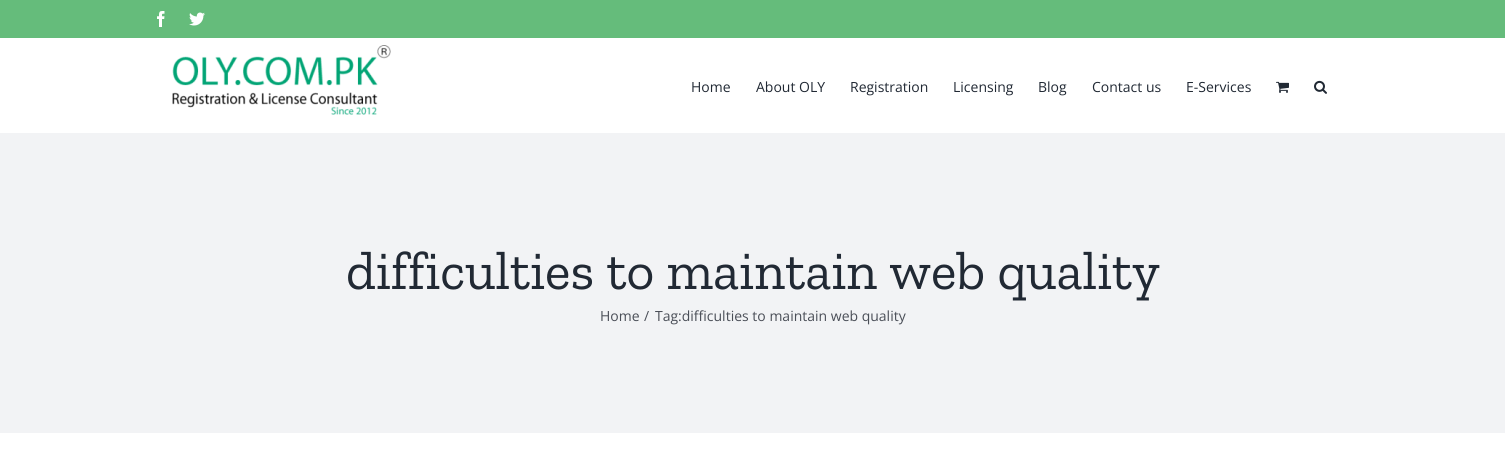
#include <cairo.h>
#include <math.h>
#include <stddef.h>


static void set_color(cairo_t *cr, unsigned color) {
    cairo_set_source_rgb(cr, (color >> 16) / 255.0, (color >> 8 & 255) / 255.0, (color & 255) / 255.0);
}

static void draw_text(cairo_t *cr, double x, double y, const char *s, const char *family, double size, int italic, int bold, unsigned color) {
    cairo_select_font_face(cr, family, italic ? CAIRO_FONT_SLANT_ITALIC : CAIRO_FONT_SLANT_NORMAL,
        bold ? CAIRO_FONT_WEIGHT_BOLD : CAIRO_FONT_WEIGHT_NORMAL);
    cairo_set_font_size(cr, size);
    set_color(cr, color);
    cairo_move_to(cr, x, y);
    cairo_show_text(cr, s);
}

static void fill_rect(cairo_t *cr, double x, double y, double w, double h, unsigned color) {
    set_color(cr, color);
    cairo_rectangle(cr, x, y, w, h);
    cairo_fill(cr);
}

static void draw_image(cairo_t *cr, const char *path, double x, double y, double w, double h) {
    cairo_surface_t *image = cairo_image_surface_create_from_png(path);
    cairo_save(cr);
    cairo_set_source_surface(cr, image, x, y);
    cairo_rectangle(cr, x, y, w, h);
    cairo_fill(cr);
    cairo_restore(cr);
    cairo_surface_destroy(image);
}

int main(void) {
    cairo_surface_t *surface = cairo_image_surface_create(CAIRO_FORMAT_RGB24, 1505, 463);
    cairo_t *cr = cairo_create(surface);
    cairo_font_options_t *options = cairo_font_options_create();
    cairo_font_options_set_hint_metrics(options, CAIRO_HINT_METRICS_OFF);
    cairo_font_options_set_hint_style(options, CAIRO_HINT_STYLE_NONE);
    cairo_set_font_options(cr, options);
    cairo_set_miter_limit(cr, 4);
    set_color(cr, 0xFFFFFF);
    cairo_paint(cr);
    fill_rect(cr, 0, 0, 1505, 38, 0x65BC7B);
    draw_image(cr, "assets/img1.png", 157, 11, 8, 16);
    draw_image(cr, "assets/img2.png", 189, 12, 16, 14);
    draw_image(cr, "assets/img3.png", 172, 45, 219, 70);
    draw_text(cr, 691, 92, "Home", "Open Sans", 14, 0, 0, 0x212934);
    draw_text(cr, 756, 92, "About OLY", "Open Sans", 14, 0, 0, 0x212934);
    draw_text(cr, 850, 92, "Registration", "Open Sans", 14, 0, 0, 0x212934);
    draw_text(cr, 953, 92, "Licensing", "Open Sans", 14, 0, 0, 0x212934);
    draw_text(cr, 1038, 92, "Blog", "Open Sans", 14, 0, 0, 0x212934);
    draw_text(cr, 1092, 92, "Contact us", "Open Sans", 14, 0, 0, 0x212934);
    draw_text(cr, 1186, 92, "E-Services", "Open Sans", 14, 0, 0, 0x212934);
    draw_image(cr, "assets/img4.png", 1276, 81, 13, 12);
    draw_image(cr, "assets/img5.png", 1314, 80, 13, 14);
    fill_rect(cr, 0, 133, 1505, 300, 0xF2F3F5);
    draw_text(cr, 346, 289, "difficulties to maintain web quality", "Zilla Slab", 54, 0, 0, 0x212934);
    draw_text(cr, 600, 321, "Home", "Open Sans", 14, 0, 0, 0x4A4E57);
    draw_text(cr, 644, 321, "/", "Open Sans", 14, 0, 0, 0x4A4E57);
    draw_text(cr, 655, 321, "Tag:difficulties to maintain web quality", "Open Sans", 14, 0, 0, 0x4A4E57);
    cairo_surface_write_to_png(surface, "output.png");
    cairo_font_options_destroy(options);
    cairo_destroy(cr);
    cairo_surface_destroy(surface);
    return 0;
}
